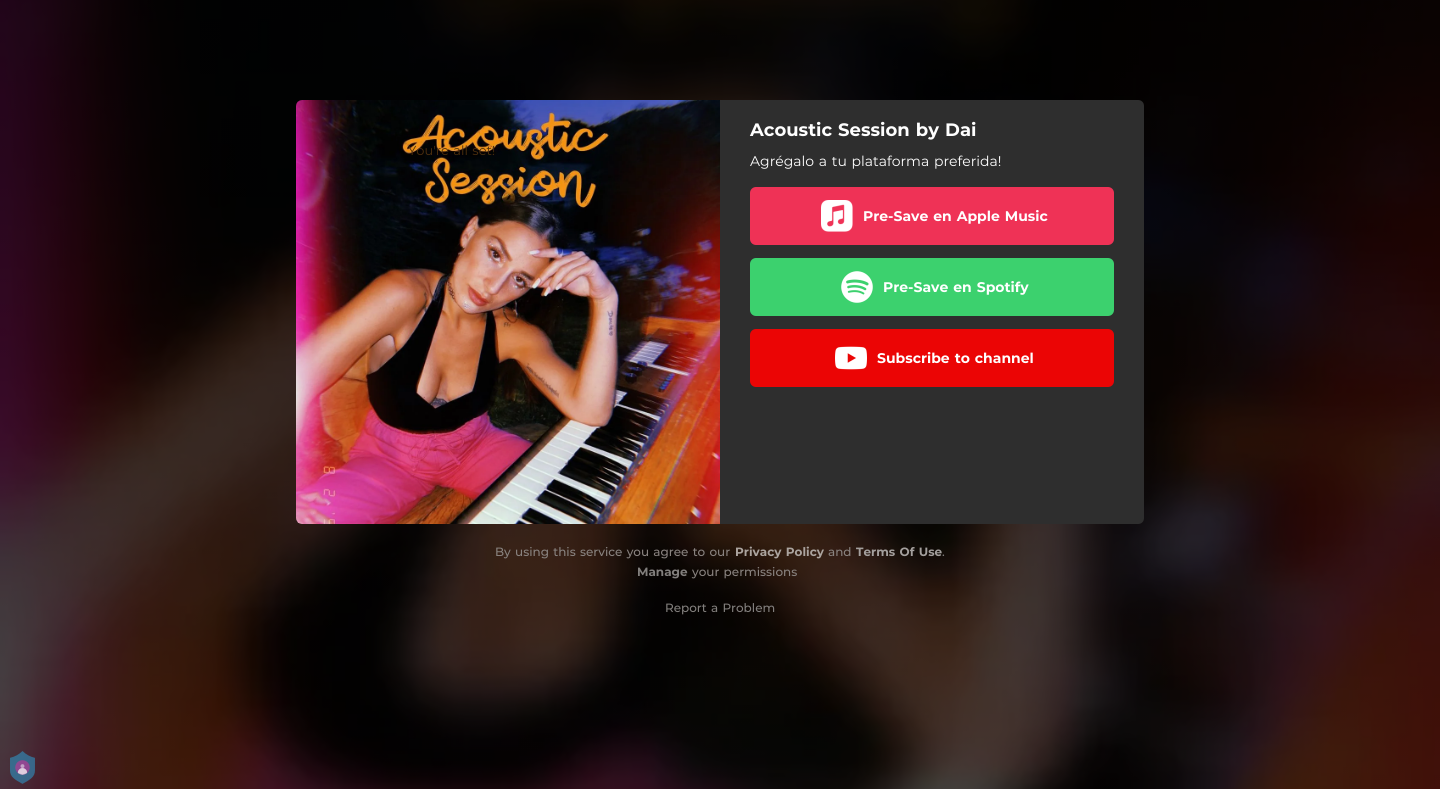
#include <cairo.h>
#include <math.h>
#include <stddef.h>


static void set_color(cairo_t *cr, unsigned color) {
    cairo_set_source_rgb(cr, (color >> 16) / 255.0, (color >> 8 & 255) / 255.0, (color & 255) / 255.0);
}

static void draw_text(cairo_t *cr, double x, double y, const char *s, const char *family, double size, int italic, int bold, unsigned color) {
    cairo_select_font_face(cr, family, italic ? CAIRO_FONT_SLANT_ITALIC : CAIRO_FONT_SLANT_NORMAL,
        bold ? CAIRO_FONT_WEIGHT_BOLD : CAIRO_FONT_WEIGHT_NORMAL);
    cairo_set_font_size(cr, size);
    set_color(cr, color);
    cairo_move_to(cr, x, y);
    cairo_show_text(cr, s);
}

static void draw_spaced(cairo_t *cr, double x, double y, const char *s, double letter, double word) {
    cairo_move_to(cr, x, y);
    while (*s) {
        char ch[5] = {0};
        int n = 0;
        do ch[n++] = *s++; while ((*s & 0xC0) == 0x80);
        cairo_show_text(cr, ch);
        cairo_rel_move_to(cr, letter + word * (*ch == ' '), 0);
    }
}

static void rounded_rect(cairo_t *cr, double x, double y, double w, double h, double r) {
    cairo_new_sub_path(cr);
    cairo_arc(cr, x + w - r, y + h - r, r, 0, M_PI / 2);
    cairo_arc(cr, x + r, y + h - r, r, M_PI / 2, M_PI);
    cairo_arc(cr, x + r, y + r, r, M_PI, 1.5 * M_PI);
    cairo_arc(cr, x + w - r, y + r, r, 1.5 * M_PI, 2 * M_PI);
    cairo_close_path(cr);
}

static void draw_image(cairo_t *cr, const char *path, double x, double y, double w, double h) {
    cairo_surface_t *image = cairo_image_surface_create_from_png(path);
    cairo_save(cr);
    cairo_set_source_surface(cr, image, x, y);
    cairo_rectangle(cr, x, y, w, h);
    cairo_fill(cr);
    cairo_restore(cr);
    cairo_surface_destroy(image);
}

int main(void) {
    cairo_surface_t *surface = cairo_image_surface_create(CAIRO_FORMAT_RGB24, 1440, 789);
    cairo_t *cr = cairo_create(surface);
    cairo_font_options_t *options = cairo_font_options_create();
    cairo_font_options_set_hint_metrics(options, CAIRO_HINT_METRICS_OFF);
    cairo_font_options_set_hint_style(options, CAIRO_HINT_STYLE_NONE);
    cairo_set_font_options(cr, options);
    cairo_set_miter_limit(cr, 4);
    set_color(cr, 0xFFFFFF);
    cairo_paint(cr);
    draw_image(cr, "assets/img1.png", 0, 0, 1440, 789);
    draw_image(cr, "assets/img2.png", 296, 100, 424, 424);
    cairo_select_font_face(cr, "Montserrat", CAIRO_FONT_SLANT_NORMAL, CAIRO_FONT_WEIGHT_NORMAL);
    cairo_set_font_size(cr, 13);
    set_color(cr, 0x4D2F0D);
    draw_spaced(cr, 408, 155, "You're all set!", 0, 1);
    set_color(cr, 0x2E2E2E);
    cairo_new_path(cr);
    cairo_move_to(cr, 720, 100);
    cairo_line_to(cr, 1138, 100);
    cairo_curve_to(cr, 1141.5, 100, 1144, 102.5, 1144, 106);
    cairo_line_to(cr, 1144, 518);
    cairo_curve_to(cr, 1144, 521.5, 1141.5, 524, 1138, 524);
    cairo_line_to(cr, 720, 524);
    cairo_close_path(cr);
    cairo_fill(cr);
    cairo_select_font_face(cr, "Montserrat", CAIRO_FONT_SLANT_NORMAL, CAIRO_FONT_WEIGHT_BOLD);
    cairo_set_font_size(cr, 18);
    set_color(cr, 0xFFFFFF);
    draw_spaced(cr, 750, 136, "Acoustic Session by Dai", 0, 1);
    cairo_select_font_face(cr, "Montserrat", CAIRO_FONT_SLANT_NORMAL, CAIRO_FONT_WEIGHT_NORMAL);
    cairo_set_font_size(cr, 14);
    draw_spaced(cr, 750, 166, "Agrégalo a tu plataforma preferida!", 0, 1);
    set_color(cr, 0xEF3256);
    rounded_rect(cr, 750, 187, 364, 58, 6);
    cairo_fill(cr);
    draw_image(cr, "assets/img3.png", 821, 200, 32, 32);
    cairo_select_font_face(cr, "Montserrat", CAIRO_FONT_SLANT_NORMAL, CAIRO_FONT_WEIGHT_BOLD);
    set_color(cr, 0xFFFFFF);
    draw_spaced(cr, 863, 221, "Pre-Save en Apple Music", 0, 1);
    set_color(cr, 0x3CD16E);
    rounded_rect(cr, 750, 258, 364, 58, 6);
    cairo_fill(cr);
    draw_image(cr, "assets/img4.png", 841, 271, 32, 32);
    set_color(cr, 0xFFFFFF);
    draw_spaced(cr, 883, 292, "Pre-Save en Spotify", 0, 1);
    set_color(cr, 0xEB0505);
    rounded_rect(cr, 750, 329, 364, 58, 6);
    cairo_fill(cr);
    draw_image(cr, "assets/img5.png", 835, 346, 32, 24);
    set_color(cr, 0xFFFFFF);
    draw_spaced(cr, 877, 363, "Subscribe to channel", 0, 1);
    cairo_select_font_face(cr, "Montserrat Medium", CAIRO_FONT_SLANT_NORMAL, CAIRO_FONT_WEIGHT_NORMAL);
    cairo_set_font_size(cr, 12);
    set_color(cr, 0x898380);
    draw_spaced(cr, 495, 556, "By using this service you agree to our", 0, 1);
    cairo_select_font_face(cr, "Montserrat", CAIRO_FONT_SLANT_NORMAL, CAIRO_FONT_WEIGHT_BOLD);
    set_color(cr, 0xABA49F);
    draw_spaced(cr, 735, 556, "Privacy Policy", 0, 1);
    draw_text(cr, 828, 556, "and", "Montserrat Medium", 12, 0, 0, 0x898380);
    cairo_select_font_face(cr, "Montserrat", CAIRO_FONT_SLANT_NORMAL, CAIRO_FONT_WEIGHT_BOLD);
    set_color(cr, 0xA4A09E);
    draw_spaced(cr, 856, 556, "Terms Of Use", 0, 1);
    draw_text(cr, 942, 556, ".", "Montserrat Medium", 12, 0, 0, 0x827F7D);
    draw_text(cr, 637, 576, "Manage", "Montserrat", 12, 0, 1, 0x827F7D);
    cairo_select_font_face(cr, "Montserrat Medium", CAIRO_FONT_SLANT_NORMAL, CAIRO_FONT_WEIGHT_NORMAL);
    set_color(cr, 0x898380);
    draw_spaced(cr, 692, 576, "your permissions", 0, 1);
    set_color(cr, 0x827F7D);
    draw_spaced(cr, 665, 612, "Report a Problem", 0, 1);
    draw_image(cr, "assets/img6.png", 10, 751, 25, 33);
    cairo_surface_write_to_png(surface, "output.png");
    cairo_font_options_destroy(options);
    cairo_destroy(cr);
    cairo_surface_destroy(surface);
    return 0;
}
